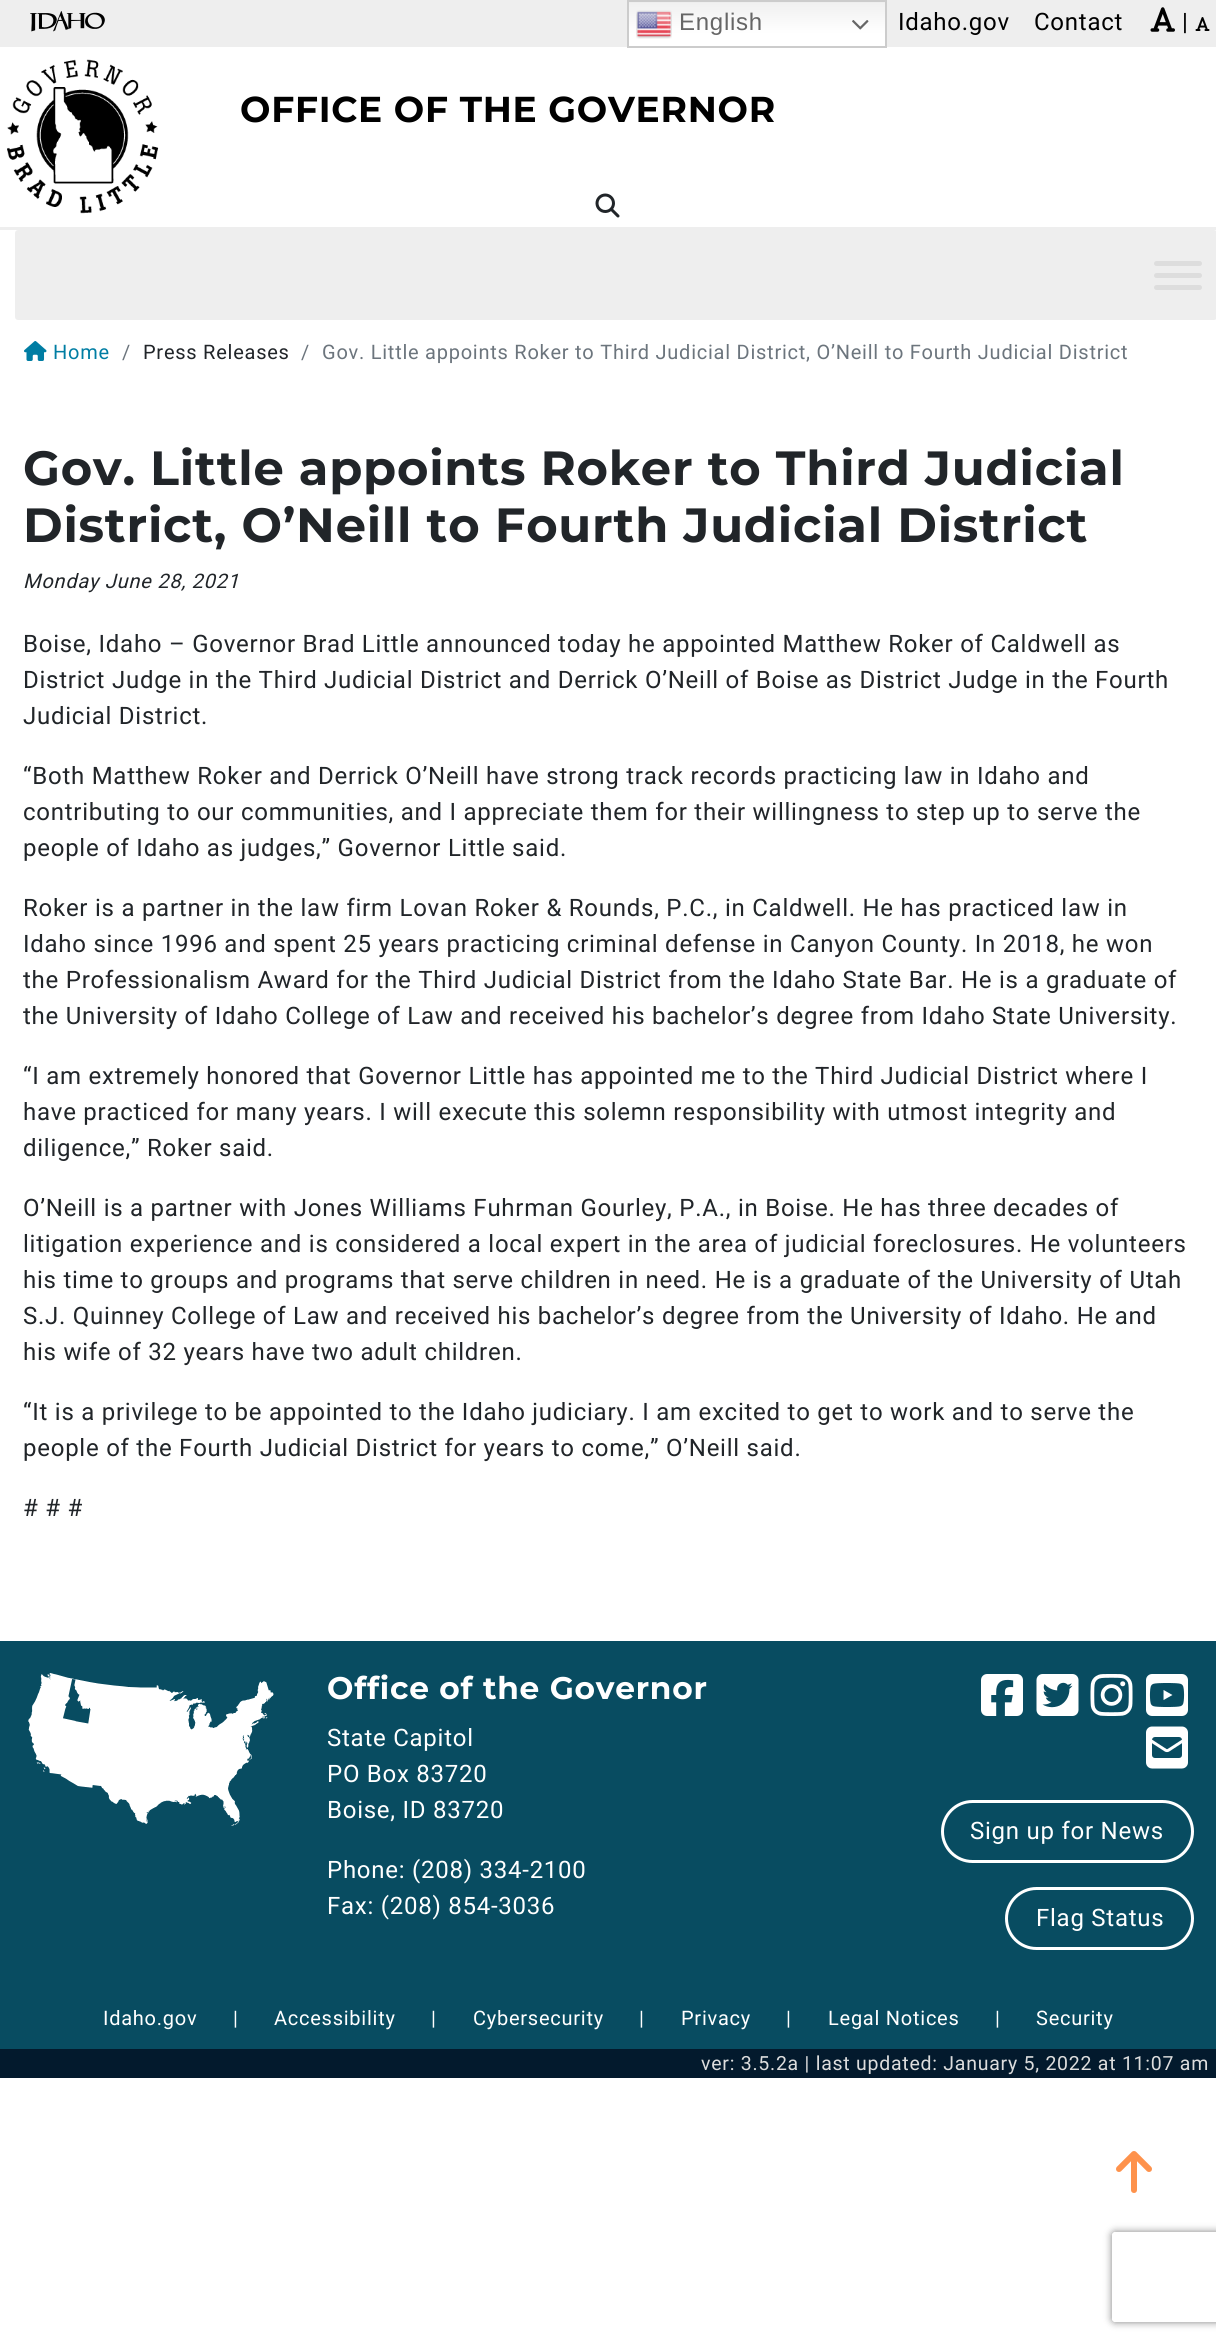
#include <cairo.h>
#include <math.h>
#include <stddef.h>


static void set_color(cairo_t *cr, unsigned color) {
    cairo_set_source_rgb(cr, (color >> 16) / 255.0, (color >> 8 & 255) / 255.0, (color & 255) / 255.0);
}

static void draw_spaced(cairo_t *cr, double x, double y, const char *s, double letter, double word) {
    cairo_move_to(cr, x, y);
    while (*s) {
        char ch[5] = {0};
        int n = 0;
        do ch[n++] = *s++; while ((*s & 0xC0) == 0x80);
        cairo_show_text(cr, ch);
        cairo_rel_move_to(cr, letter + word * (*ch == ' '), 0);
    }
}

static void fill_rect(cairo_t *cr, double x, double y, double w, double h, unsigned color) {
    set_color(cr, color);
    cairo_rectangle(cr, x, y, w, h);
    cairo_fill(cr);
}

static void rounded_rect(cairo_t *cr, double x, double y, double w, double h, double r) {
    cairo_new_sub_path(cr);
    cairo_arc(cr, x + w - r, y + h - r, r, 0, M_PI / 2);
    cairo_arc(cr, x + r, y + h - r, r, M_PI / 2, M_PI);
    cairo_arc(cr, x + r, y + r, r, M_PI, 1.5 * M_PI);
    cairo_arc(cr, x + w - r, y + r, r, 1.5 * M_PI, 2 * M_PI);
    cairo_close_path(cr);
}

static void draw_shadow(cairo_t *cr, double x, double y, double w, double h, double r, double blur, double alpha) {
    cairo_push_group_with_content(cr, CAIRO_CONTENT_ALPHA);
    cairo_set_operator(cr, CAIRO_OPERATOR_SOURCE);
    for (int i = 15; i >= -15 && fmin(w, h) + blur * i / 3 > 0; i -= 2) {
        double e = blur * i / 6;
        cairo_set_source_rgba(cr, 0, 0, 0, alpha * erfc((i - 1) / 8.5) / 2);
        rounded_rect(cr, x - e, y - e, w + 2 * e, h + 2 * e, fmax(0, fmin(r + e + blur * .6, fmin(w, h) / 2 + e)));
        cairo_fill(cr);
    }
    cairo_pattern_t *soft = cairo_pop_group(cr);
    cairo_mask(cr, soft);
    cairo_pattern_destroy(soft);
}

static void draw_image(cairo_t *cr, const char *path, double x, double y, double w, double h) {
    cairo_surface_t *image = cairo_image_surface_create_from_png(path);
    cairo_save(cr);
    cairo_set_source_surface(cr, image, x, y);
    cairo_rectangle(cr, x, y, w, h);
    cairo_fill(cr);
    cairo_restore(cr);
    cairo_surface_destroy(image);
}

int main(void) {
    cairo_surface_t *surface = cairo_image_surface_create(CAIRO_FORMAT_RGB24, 1216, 2343);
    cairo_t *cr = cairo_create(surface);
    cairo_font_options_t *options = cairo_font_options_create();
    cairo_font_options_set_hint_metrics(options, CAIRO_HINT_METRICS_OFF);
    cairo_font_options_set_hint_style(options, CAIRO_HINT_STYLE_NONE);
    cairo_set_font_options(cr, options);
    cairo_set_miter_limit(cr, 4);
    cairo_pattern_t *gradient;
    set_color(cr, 0xFFFFFF);
    cairo_paint(cr);
    fill_rect(cr, 0, 0, 1216, 47, 0xEEEEEE);
    draw_image(cr, "assets/img1.png", 30, 11, 75, 21);
    gradient = cairo_pattern_create_linear(757, 0, 757, 48);
    cairo_pattern_add_color_stop_rgba(gradient, 0, 0.937, 0.937, 0.937, 1);
    cairo_pattern_add_color_stop_rgba(gradient, 0.7, 1, 1, 1, 1);
    cairo_set_source(cr, gradient);
    cairo_pattern_destroy(gradient);
    cairo_rectangle(cr, 629, 3, 256, 43);
    cairo_fill(cr);
    cairo_rectangle(cr, 628, 1, 258, 46);
    set_color(cr, 0xCCCCCC);
    cairo_stroke(cr);
    draw_image(cr, "assets/img2.png", 636, 10, 36, 29);
    cairo_select_font_face(cr, "Liberation Sans", CAIRO_FONT_SLANT_NORMAL, CAIRO_FONT_WEIGHT_NORMAL);
    cairo_set_font_size(cr, 24);
    set_color(cr, 0x666666);
    draw_spaced(cr, 679, 30, "English", 0.75, 0);
    draw_image(cr, "assets/img3.png", 852, 20, 17, 10);
    cairo_select_font_face(cr, "Roboto", CAIRO_FONT_SLANT_NORMAL, CAIRO_FONT_WEIGHT_NORMAL);
    set_color(cr, 0x000000);
    draw_spaced(cr, 898, 30, "Idaho.gov", 0.75, 0);
    draw_spaced(cr, 1034, 30, "Contact", 0.75, 0);
    draw_image(cr, "assets/img4.png", 1150, 7, 25, 25);
    draw_spaced(cr, 1182, 30, "|", 0.75, 0);
    draw_image(cr, "assets/img5.png", 1195, 17, 15, 14);
    fill_rect(cr, 0, 227, 1216, 3, 0xEEEEEE);
    draw_image(cr, "assets/img6.png", 7, 59, 152, 155);
    cairo_select_font_face(cr, "Montserrat", CAIRO_FONT_SLANT_NORMAL, CAIRO_FONT_WEIGHT_BOLD);
    cairo_set_font_size(cr, 36);
    set_color(cr, 0x000000);
    draw_spaced(cr, 240, 122, "OFFICE OF THE GOVERNOR", 0.75, 0);
    draw_image(cr, "assets/img7.png", 595, 193, 25, 25);
    set_color(cr, 0xEEEEEE);
    rounded_rect(cr, 15, 230, 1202, 90, 3);
    cairo_fill(cr);
    set_color(cr, 0xDDDDDD);
    rounded_rect(cr, 1154, 261, 48, 5, 2.5);
    cairo_fill(cr);
    rounded_rect(cr, 1154, 273, 48, 5, 2.5);
    cairo_fill(cr);
    rounded_rect(cr, 1154, 285, 48, 5, 2.5);
    cairo_fill(cr);
    draw_image(cr, "assets/img8.png", 24, 341, 23, 20);
    cairo_select_font_face(cr, "Roboto", CAIRO_FONT_SLANT_NORMAL, CAIRO_FONT_WEIGHT_NORMAL);
    cairo_set_font_size(cr, 20);
    set_color(cr, 0x007DA3);
    draw_spaced(cr, 53, 359, "Home", 0.75, 0);
    set_color(cr, 0x6C757D);
    draw_spaced(cr, 122, 359, "/", 0.75, 0);
    set_color(cr, 0x212529);
    draw_spaced(cr, 143, 359, "Press Releases", 0.75, 0);
    set_color(cr, 0x6C757D);
    draw_spaced(cr, 301, 359, "/", 0.75, 0);
    draw_spaced(cr, 322, 359, "Gov. Little appoints Roker to Third Judicial District, O’Neill to Fourth Judicial District", 0.75, 0);
    cairo_select_font_face(cr, "Montserrat", CAIRO_FONT_SLANT_NORMAL, CAIRO_FONT_WEIGHT_BOLD);
    cairo_set_font_size(cr, 48);
    set_color(cr, 0x212529);
    draw_spaced(cr, 23, 485, "Gov. Little appoints Roker to Third Judicial", 0.75, 0);
    draw_spaced(cr, 23, 542, "District, O’Neill to Fourth Judicial District", 0.75, 0);
    cairo_select_font_face(cr, "Roboto", CAIRO_FONT_SLANT_ITALIC, CAIRO_FONT_WEIGHT_NORMAL);
    cairo_set_font_size(cr, 20);
    draw_spaced(cr, 23, 588, "Monday June 28, 2021", 0.75, 0);
    cairo_select_font_face(cr, "Roboto", CAIRO_FONT_SLANT_NORMAL, CAIRO_FONT_WEIGHT_NORMAL);
    cairo_set_font_size(cr, 24);
    draw_spaced(cr, 23, 652, "Boise, Idaho – Governor Brad Little announced today he appointed Matthew Roker of Caldwell as", 0.75, 0);
    draw_spaced(cr, 23, 688, "District Judge in the Third Judicial District and Derrick O’Neill of Boise as District Judge in the Fourth", 0.75, 0);
    draw_spaced(cr, 23, 724, "Judicial District.", 0.75, 0);
    draw_spaced(cr, 23, 784, "“Both Matthew Roker and Derrick O’Neill have strong track records practicing law in Idaho and", 0.75, 0);
    draw_spaced(cr, 23, 820, "contributing to our communities, and I appreciate them for their willingness to step up to serve the", 0.75, 0);
    draw_spaced(cr, 23, 856, "people of Idaho as judges,” Governor Little said.", 0.75, 0);
    draw_spaced(cr, 23, 916, "Roker is a partner in the law firm Lovan Roker & Rounds, P.C., in Caldwell. He has practiced law in", 0.75, 0);
    draw_spaced(cr, 23, 952, "Idaho since 1996 and spent 25 years practicing criminal defense in Canyon County. In 2018, he won", 0.75, 0);
    draw_spaced(cr, 23, 988, "the Professionalism Award for the Third Judicial District from the Idaho State Bar. He is a graduate of", 0.75, 0);
    draw_spaced(cr, 23, 1024, "the University of Idaho College of Law and received his bachelor’s degree from Idaho State University.", 0.75, 0);
    draw_spaced(cr, 23, 1084, "“I am extremely honored that Governor Little has appointed me to the Third Judicial District where I", 0.75, 0);
    draw_spaced(cr, 23, 1120, "have practiced for many years. I will execute this solemn responsibility with utmost integrity and", 0.75, 0);
    draw_spaced(cr, 23, 1156, "diligence,” Roker said.", 0.75, 0);
    draw_spaced(cr, 23, 1216, "O’Neill is a partner with Jones Williams Fuhrman Gourley, P.A., in Boise. He has three decades of", 0.75, 0);
    draw_spaced(cr, 23, 1252, "litigation experience and is considered a local expert in the area of judicial foreclosures. He volunteers", 0.75, 0);
    draw_spaced(cr, 23, 1288, "his time to groups and programs that serve children in need. He is a graduate of the University of Utah", 0.75, 0);
    draw_spaced(cr, 23, 1324, "S.J. Quinney College of Law and received his bachelor’s degree from the University of Idaho. He and", 0.75, 0);
    draw_spaced(cr, 23, 1360, "his wife of 32 years have two adult children.", 0.75, 0);
    draw_spaced(cr, 23, 1420, "“It is a privilege to be appointed to the Idaho judiciary. I am excited to get to work and to serve the", 0.75, 0);
    draw_spaced(cr, 23, 1456, "people of the Fourth Judicial District for years to come,” O’Neill said.", 0.75, 0);
    draw_spaced(cr, 23, 1516, "# # #", 0.75, 0);
    fill_rect(cr, 0, 1641, 1216, 408, 0x084C61);
    draw_image(cr, "assets/img9.png", 28, 1673, 246, 153);
    cairo_select_font_face(cr, "Montserrat", CAIRO_FONT_SLANT_NORMAL, CAIRO_FONT_WEIGHT_BOLD);
    cairo_set_font_size(cr, 31.25);
    set_color(cr, 0xFFFFFF);
    draw_spaced(cr, 327, 1699, "Office of the Governor", 0.75, 0);
    cairo_select_font_face(cr, "Roboto", CAIRO_FONT_SLANT_NORMAL, CAIRO_FONT_WEIGHT_NORMAL);
    cairo_set_font_size(cr, 24);
    draw_spaced(cr, 327, 1746, "State Capitol", 0.75, 0);
    draw_spaced(cr, 327, 1782, "PO Box 83720", 0.75, 0);
    draw_spaced(cr, 327, 1818, "Boise, ID 83720", 0.75, 0);
    draw_spaced(cr, 327, 1878, "Phone: (208) 334-2100", 0.75, 0);
    draw_spaced(cr, 327, 1914, "Fax: (208) 854-3036", 0.75, 0);
    draw_image(cr, "assets/img10.png", 981, 1674, 42, 42);
    draw_image(cr, "assets/img11.png", 1036, 1674, 43, 42);
    draw_image(cr, "assets/img12.png", 1090, 1674, 43, 42);
    draw_image(cr, "assets/img13.png", 1146, 1674, 42, 42);
    draw_image(cr, "assets/img14.png", 1146, 1726, 42, 43);
    rounded_rect(cr, 942.5, 1801.5, 250, 60, 30);
    cairo_set_line_width(cr, 3);
    cairo_stroke(cr);
    draw_spaced(cr, 970, 1839, "Sign up for News", 0.75, 0);
    rounded_rect(cr, 1006.5, 1888.5, 186, 60, 30);
    cairo_stroke(cr);
    draw_spaced(cr, 1036, 1926, "Flag Status", 0.75, 0);
    cairo_set_font_size(cr, 20);
    draw_spaced(cr, 103, 2025, "Idaho.gov", 0.75, 0);
    draw_spaced(cr, 233, 2025, "|", 0.75, 0);
    draw_spaced(cr, 274, 2025, "Accessibility", 0.75, 0);
    draw_spaced(cr, 431, 2025, "|", 0.75, 0);
    draw_spaced(cr, 473, 2025, "Cybersecurity", 0.75, 0);
    draw_spaced(cr, 639, 2025, "|", 0.75, 0);
    draw_spaced(cr, 681, 2025, "Privacy", 0.75, 0);
    draw_spaced(cr, 786, 2025, "|", 0.75, 0);
    draw_spaced(cr, 828, 2025, "Legal Notices", 0.75, 0);
    draw_spaced(cr, 995, 2025, "|", 0.75, 0);
    draw_spaced(cr, 1036, 2025, "Security", 0.75, 0);
    fill_rect(cr, 0, 2049, 1216, 29, 0x031A2D);
    cairo_set_font_size(cr, 19.5);
    set_color(cr, 0xDDDDDD);
    draw_spaced(cr, 701, 2070, "ver: 3.5.2a | last updated: January 5, 2022 at 11:07 am", 0.75, 0);
    draw_image(cr, "assets/img15.png", 1116, 2151, 36, 42);
    cairo_save(cr);
    cairo_set_fill_rule(cr, CAIRO_FILL_RULE_EVEN_ODD);
    cairo_new_path(cr);
    cairo_move_to(cr, 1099, 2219);
    cairo_line_to(cr, 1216, 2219);
    cairo_line_to(cr, 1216, 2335);
    cairo_line_to(cr, 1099, 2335);
    cairo_close_path(cr);
    cairo_move_to(cr, 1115, 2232);
    cairo_line_to(cr, 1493, 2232);
    cairo_curve_to(cr, 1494.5, 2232, 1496, 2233.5, 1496, 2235);
    cairo_line_to(cr, 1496, 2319);
    cairo_curve_to(cr, 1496, 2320.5, 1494.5, 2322, 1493, 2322);
    cairo_line_to(cr, 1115, 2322);
    cairo_curve_to(cr, 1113.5, 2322, 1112, 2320.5, 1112, 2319);
    cairo_line_to(cr, 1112, 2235);
    cairo_curve_to(cr, 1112, 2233.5, 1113.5, 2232, 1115, 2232);
    cairo_close_path(cr);
    cairo_clip(cr);
    set_color(cr, 0x808080);
    draw_shadow(cr, 1112, 2232, 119, 90, 3, 4, 1);
    cairo_restore(cr);
    cairo_surface_write_to_png(surface, "output.png");
    cairo_font_options_destroy(options);
    cairo_destroy(cr);
    cairo_surface_destroy(surface);
    return 0;
}
